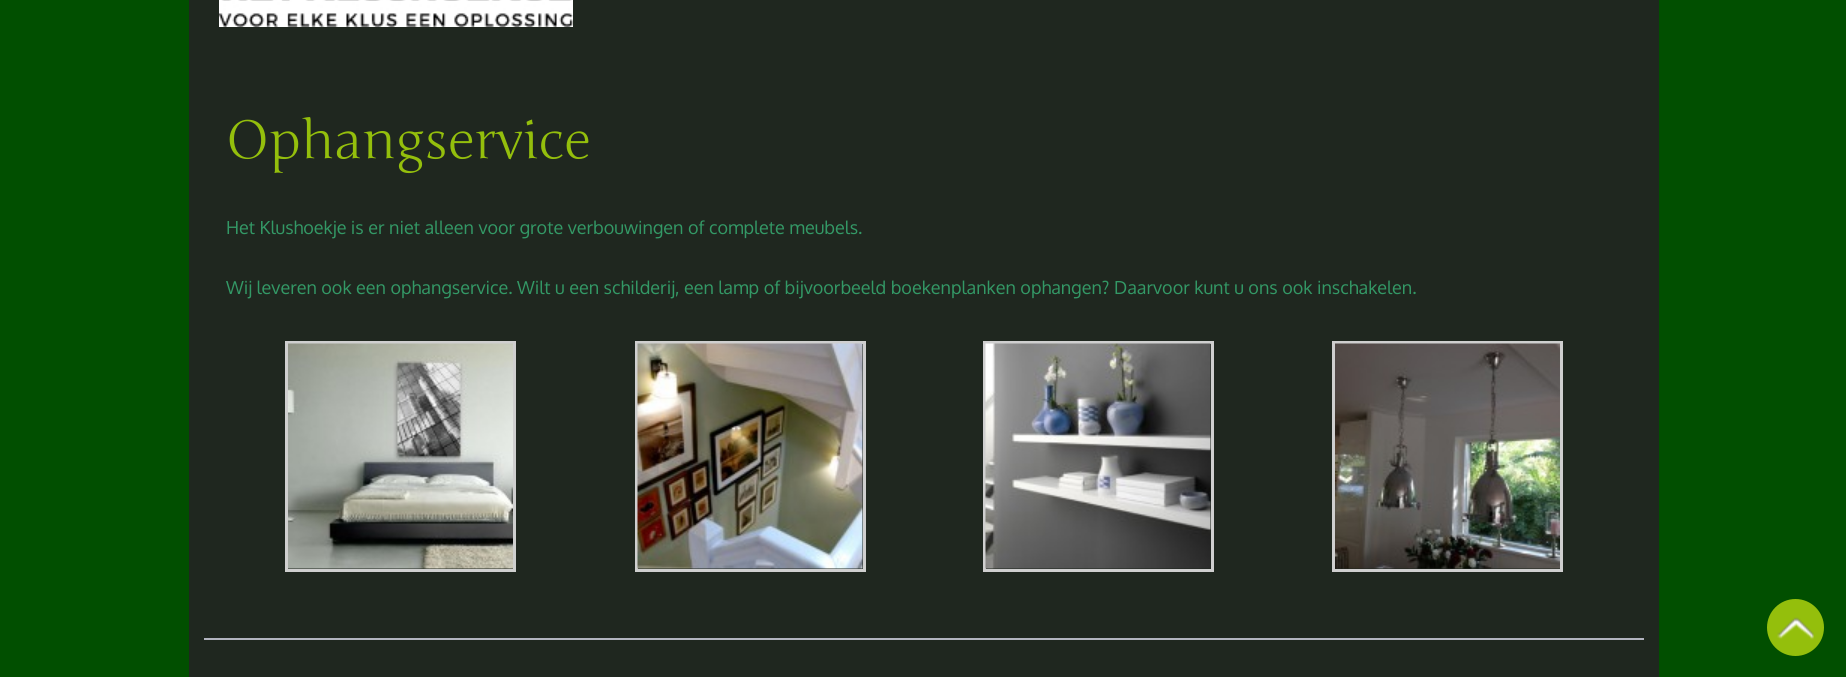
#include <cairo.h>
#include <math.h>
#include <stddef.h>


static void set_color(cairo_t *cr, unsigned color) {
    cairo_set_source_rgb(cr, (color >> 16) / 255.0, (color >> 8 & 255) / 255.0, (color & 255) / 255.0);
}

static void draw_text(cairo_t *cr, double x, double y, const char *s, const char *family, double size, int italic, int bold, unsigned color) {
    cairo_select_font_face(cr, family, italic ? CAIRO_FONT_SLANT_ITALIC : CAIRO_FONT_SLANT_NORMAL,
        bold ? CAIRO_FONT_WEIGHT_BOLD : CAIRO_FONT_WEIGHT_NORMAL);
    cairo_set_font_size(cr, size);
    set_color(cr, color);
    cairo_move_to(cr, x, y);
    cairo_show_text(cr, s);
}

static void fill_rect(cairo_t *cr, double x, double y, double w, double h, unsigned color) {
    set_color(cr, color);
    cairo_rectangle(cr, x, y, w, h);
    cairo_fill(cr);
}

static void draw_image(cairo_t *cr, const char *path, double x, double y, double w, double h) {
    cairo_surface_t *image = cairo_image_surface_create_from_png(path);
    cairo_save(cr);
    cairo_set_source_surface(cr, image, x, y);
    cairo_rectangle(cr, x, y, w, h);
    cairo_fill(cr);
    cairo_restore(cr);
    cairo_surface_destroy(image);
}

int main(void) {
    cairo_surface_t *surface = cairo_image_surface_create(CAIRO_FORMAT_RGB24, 1846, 677);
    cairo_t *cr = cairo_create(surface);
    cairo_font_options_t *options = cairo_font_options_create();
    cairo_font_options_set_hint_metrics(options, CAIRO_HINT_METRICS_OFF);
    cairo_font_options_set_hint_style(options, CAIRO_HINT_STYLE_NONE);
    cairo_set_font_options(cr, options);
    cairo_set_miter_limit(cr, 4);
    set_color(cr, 0x014F00);
    cairo_paint(cr);
    fill_rect(cr, 189, 0, 1470, 677, 0x1F271F);
    draw_image(cr, "assets/img1.png", 219, 0, 354, 27);
    draw_text(cr, 226, 158, "Ophangservice", "Junge", 52.5, 0, 0, 0x94BF0C);
    draw_text(cr, 226, 234, "Het Klushoekje is er niet alleen voor grote verbouwingen of complete meubels.", "Oxygen", 18, 0, 0, 0x339966);
    draw_text(cr, 226, 294, "Wij leveren ook een ophangservice. Wilt u een schilderij, een lamp of bijvoorbeeld boekenplanken ophangen? Daarvoor kunt u ons ook inschakelen.", "Oxygen", 18, 0, 0, 0x339966);
    cairo_rectangle(cr, 286.5, 342.5, 228, 228);
    set_color(cr, 0xCFCFCF);
    cairo_set_line_width(cr, 3);
    cairo_stroke(cr);
    draw_image(cr, "assets/img2.png", 288, 343, 225, 226);
    cairo_rectangle(cr, 636.5, 342.5, 228, 228);
    cairo_stroke(cr);
    draw_image(cr, "assets/img3.png", 637, 343, 226, 226);
    cairo_rectangle(cr, 984.5, 342.5, 228, 228);
    cairo_stroke(cr);
    draw_image(cr, "assets/img4.png", 985, 343, 226, 226);
    cairo_rectangle(cr, 1333.5, 342.5, 228, 228);
    cairo_stroke(cr);
    draw_image(cr, "assets/img5.png", 1335, 343, 225, 226);
    fill_rect(cr, 204, 638, 1440, 2, 0xB2B4BF);
    set_color(cr, 0x94BF0C);
    cairo_arc(cr, 1795.5, 627.5, 28.5, 0, 2 * M_PI);
    cairo_fill(cr);
    draw_image(cr, "assets/img6.png", 1777, 617, 37, 23);
    cairo_surface_write_to_png(surface, "output.png");
    cairo_font_options_destroy(options);
    cairo_destroy(cr);
    cairo_surface_destroy(surface);
    return 0;
}
